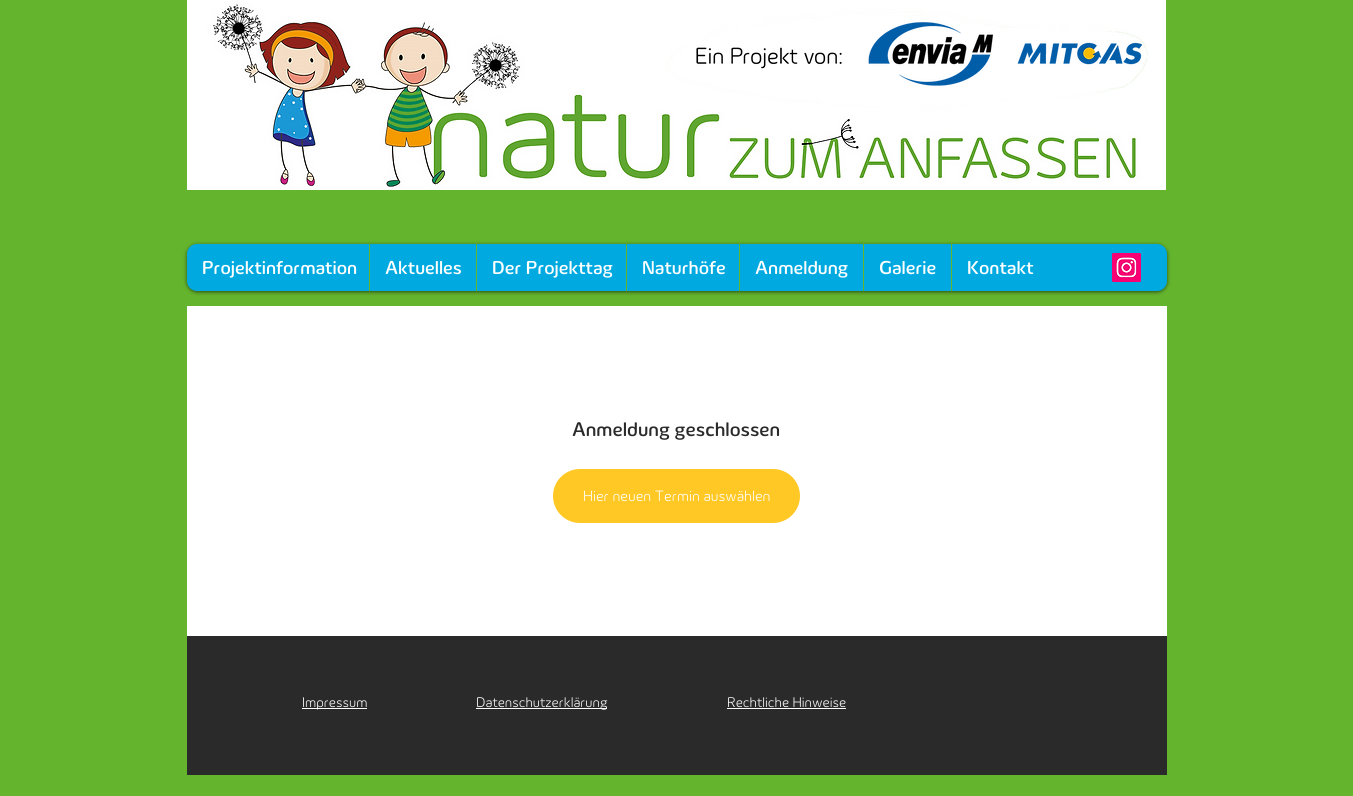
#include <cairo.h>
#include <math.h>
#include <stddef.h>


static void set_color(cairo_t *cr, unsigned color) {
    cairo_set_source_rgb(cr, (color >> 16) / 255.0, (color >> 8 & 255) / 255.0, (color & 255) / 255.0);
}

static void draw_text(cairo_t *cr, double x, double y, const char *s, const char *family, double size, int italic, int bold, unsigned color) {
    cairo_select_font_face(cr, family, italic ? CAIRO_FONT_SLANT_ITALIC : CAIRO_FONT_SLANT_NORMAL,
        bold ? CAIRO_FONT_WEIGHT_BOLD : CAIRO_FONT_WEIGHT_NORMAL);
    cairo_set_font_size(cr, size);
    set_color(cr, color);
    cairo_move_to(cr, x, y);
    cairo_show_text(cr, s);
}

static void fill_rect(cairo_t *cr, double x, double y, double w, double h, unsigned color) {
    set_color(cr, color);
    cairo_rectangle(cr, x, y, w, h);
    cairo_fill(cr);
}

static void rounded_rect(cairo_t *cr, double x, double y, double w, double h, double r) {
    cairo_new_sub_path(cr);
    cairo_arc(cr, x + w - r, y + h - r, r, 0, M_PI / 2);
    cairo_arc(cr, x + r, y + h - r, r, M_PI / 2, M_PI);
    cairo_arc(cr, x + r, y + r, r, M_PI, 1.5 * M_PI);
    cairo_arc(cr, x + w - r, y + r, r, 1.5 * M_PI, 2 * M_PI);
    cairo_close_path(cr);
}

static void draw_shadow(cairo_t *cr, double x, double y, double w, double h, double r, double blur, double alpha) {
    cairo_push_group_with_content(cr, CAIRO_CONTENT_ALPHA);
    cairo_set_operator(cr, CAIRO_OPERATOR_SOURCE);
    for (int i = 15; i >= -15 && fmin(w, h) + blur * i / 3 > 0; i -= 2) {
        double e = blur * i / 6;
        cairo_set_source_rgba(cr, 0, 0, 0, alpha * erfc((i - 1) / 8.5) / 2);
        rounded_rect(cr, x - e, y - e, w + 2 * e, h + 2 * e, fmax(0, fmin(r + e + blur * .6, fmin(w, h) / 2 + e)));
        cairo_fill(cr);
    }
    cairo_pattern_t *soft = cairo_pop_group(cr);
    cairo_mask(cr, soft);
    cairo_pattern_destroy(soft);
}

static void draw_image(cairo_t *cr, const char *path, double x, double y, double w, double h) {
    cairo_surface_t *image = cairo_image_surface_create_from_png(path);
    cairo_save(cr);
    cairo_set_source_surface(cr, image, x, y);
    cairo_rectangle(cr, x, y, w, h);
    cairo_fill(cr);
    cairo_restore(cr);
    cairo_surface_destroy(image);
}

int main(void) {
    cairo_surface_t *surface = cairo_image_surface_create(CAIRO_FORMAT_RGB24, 1353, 796);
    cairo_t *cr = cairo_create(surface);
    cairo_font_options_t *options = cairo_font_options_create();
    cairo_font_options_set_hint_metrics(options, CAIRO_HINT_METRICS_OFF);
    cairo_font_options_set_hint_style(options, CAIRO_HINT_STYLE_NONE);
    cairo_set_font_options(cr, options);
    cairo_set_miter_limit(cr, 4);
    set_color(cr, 0x64B42D);
    cairo_paint(cr);
    draw_image(cr, "assets/img1.png", 187, 0, 979, 190);
    draw_image(cr, "assets/img2.png", 696, 22, 447, 64);
    set_color(cr, 0x000000);
    draw_shadow(cr, 187, 245, 980, 47, 10, 2, 0.6);
    set_color(cr, 0x00AAE1);
    rounded_rect(cr, 187, 244, 980, 47, 10);
    cairo_fill(cr);
    draw_text(cr, 202, 274, "Projektinformation", "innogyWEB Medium", 20, 0, 0, 0xFFFFFF);
    fill_rect(cr, 369, 244, 1, 47, 0x64B42D);
    draw_text(cr, 385, 274, "Aktuelles", "innogyWEB Medium", 20, 0, 0, 0xFFFFFF);
    fill_rect(cr, 476, 244, 1, 47, 0x64B42D);
    draw_text(cr, 492, 274, "Der Projekttag", "innogyWEB Medium", 20, 0, 0, 0xFFFFFF);
    fill_rect(cr, 626, 244, 1, 47, 0x64B42D);
    draw_text(cr, 642, 274, "Naturhöfe", "innogyWEB Medium", 20, 0, 0, 0xFFFFFF);
    fill_rect(cr, 739, 244, 1, 47, 0x64B42D);
    draw_text(cr, 755, 274, "Anmeldung", "innogyWEB Medium", 20, 0, 0, 0xFFFFFF);
    fill_rect(cr, 863, 244, 1, 47, 0x64B42D);
    draw_text(cr, 879, 274, "Galerie", "innogyWEB Medium", 20, 0, 0, 0xFFFFFF);
    fill_rect(cr, 951, 244, 1, 47, 0x64B42D);
    draw_text(cr, 967, 274, "Kontakt", "innogyWEB Medium", 20, 0, 0, 0xFFFFFF);
    draw_image(cr, "assets/img3.png", 1112, 253, 29, 29);
    fill_rect(cr, 187, 306, 980, 330, 0xFFFFFF);
    draw_text(cr, 572, 436, "Anmeldung geschlossen", "innogyWEB Medium", 21, 0, 0, 0x2A2A2A);
    set_color(cr, 0xFFC824);
    rounded_rect(cr, 553, 469, 247, 54, 27);
    cairo_fill(cr);
    draw_text(cr, 583, 501, "Hier neuen Termin auswählen", "innogyWEB Light", 16, 0, 0, 0xFFFFFF);
    fill_rect(cr, 187, 636, 980, 139, 0x2A2A2A);
    fill_rect(cr, 302, 708, 65, 1, 0xFFFFFF);
    draw_text(cr, 302, 707, "Impressum", "innogyWEB Light", 15, 0, 0, 0xFFFFFF);
    fill_rect(cr, 476, 708, 131, 1, 0xFFFFFF);
    draw_text(cr, 476, 707, "Datenschutzerklärung", "innogyWEB Light", 15, 0, 0, 0xFFFFFF);
    draw_text(cr, 727, 707, "Rechtliche Hinweise", "innogyWEB Light", 15, 0, 0, 0xFFFFFF);
    fill_rect(cr, 727, 708, 119, 1, 0xFFFFFF);
    cairo_surface_write_to_png(surface, "output.png");
    cairo_font_options_destroy(options);
    cairo_destroy(cr);
    cairo_surface_destroy(surface);
    return 0;
}
